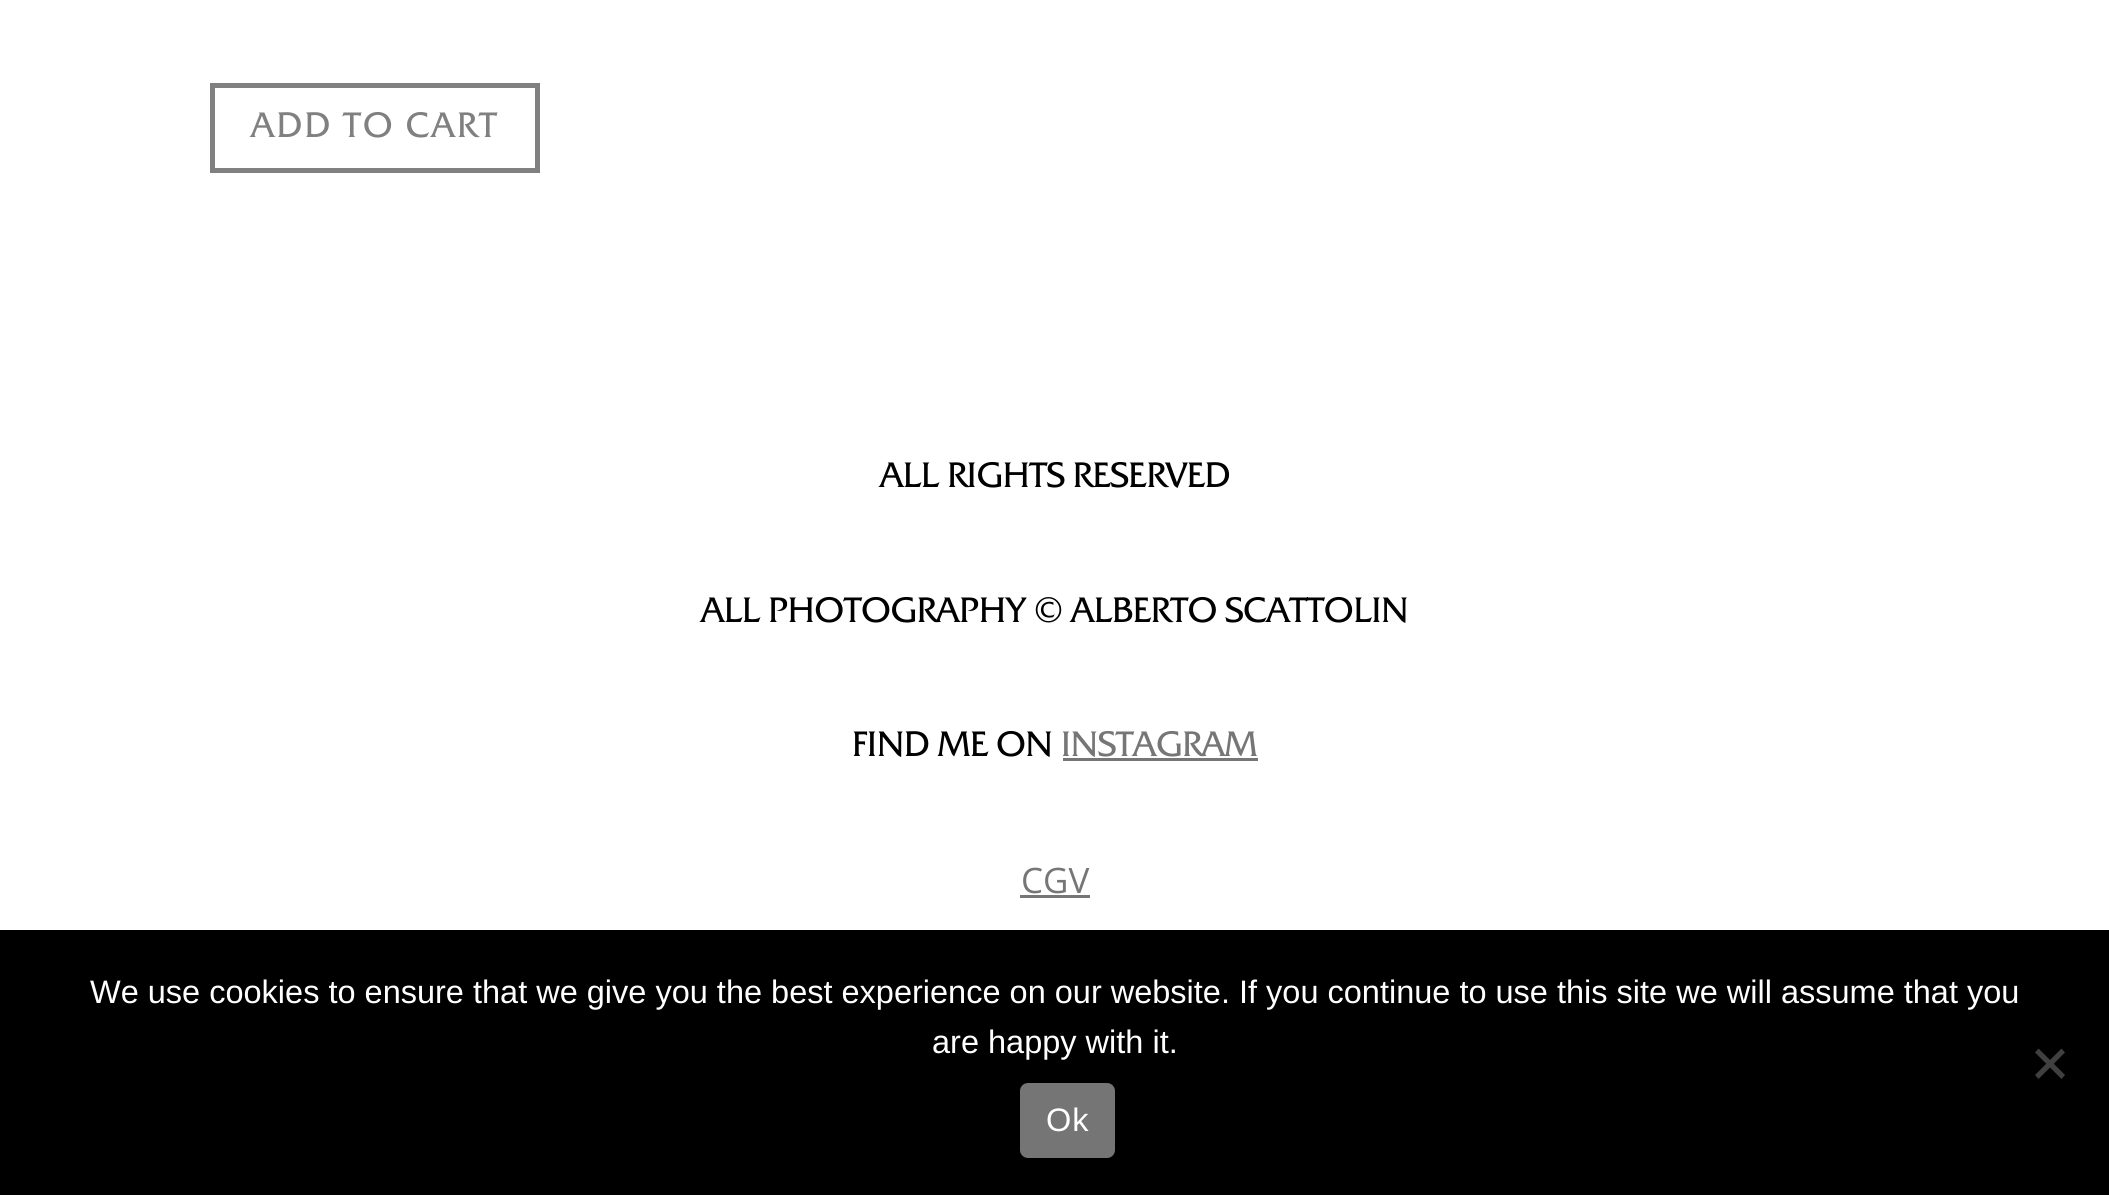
#include <cairo.h>
#include <math.h>
#include <stddef.h>


static void set_color(cairo_t *cr, unsigned color) {
    cairo_set_source_rgb(cr, (color >> 16) / 255.0, (color >> 8 & 255) / 255.0, (color & 255) / 255.0);
}

static void draw_text(cairo_t *cr, double x, double y, const char *s, const char *family, double size, int italic, int bold, unsigned color) {
    cairo_select_font_face(cr, family, italic ? CAIRO_FONT_SLANT_ITALIC : CAIRO_FONT_SLANT_NORMAL,
        bold ? CAIRO_FONT_WEIGHT_BOLD : CAIRO_FONT_WEIGHT_NORMAL);
    cairo_set_font_size(cr, size);
    set_color(cr, color);
    cairo_move_to(cr, x, y);
    cairo_show_text(cr, s);
}

static void draw_spaced(cairo_t *cr, double x, double y, const char *s, double letter, double word) {
    cairo_move_to(cr, x, y);
    while (*s) {
        char ch[5] = {0};
        int n = 0;
        do ch[n++] = *s++; while ((*s & 0xC0) == 0x80);
        cairo_show_text(cr, ch);
        cairo_rel_move_to(cr, letter + word * (*ch == ' '), 0);
    }
}

static void fill_rect(cairo_t *cr, double x, double y, double w, double h, unsigned color) {
    set_color(cr, color);
    cairo_rectangle(cr, x, y, w, h);
    cairo_fill(cr);
}

static void rounded_rect(cairo_t *cr, double x, double y, double w, double h, double r) {
    cairo_new_sub_path(cr);
    cairo_arc(cr, x + w - r, y + h - r, r, 0, M_PI / 2);
    cairo_arc(cr, x + r, y + h - r, r, M_PI / 2, M_PI);
    cairo_arc(cr, x + r, y + r, r, M_PI, 1.5 * M_PI);
    cairo_arc(cr, x + w - r, y + r, r, 1.5 * M_PI, 2 * M_PI);
    cairo_close_path(cr);
}

int main(void) {
    cairo_surface_t *surface = cairo_image_surface_create(CAIRO_FORMAT_RGB24, 2109, 1195);
    cairo_t *cr = cairo_create(surface);
    cairo_font_options_t *options = cairo_font_options_create();
    cairo_font_options_set_hint_metrics(options, CAIRO_HINT_METRICS_OFF);
    cairo_font_options_set_hint_style(options, CAIRO_HINT_STYLE_NONE);
    cairo_set_font_options(cr, options);
    cairo_set_miter_limit(cr, 4);
    set_color(cr, 0xFFFFFF);
    cairo_paint(cr);
    cairo_rectangle(cr, 212.5, 85.5, 325, 85);
    set_color(cr, 0x808080);
    cairo_set_line_width(cr, 5);
    cairo_stroke(cr);
    cairo_select_font_face(cr, "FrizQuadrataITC", CAIRO_FONT_SLANT_NORMAL, CAIRO_FONT_WEIGHT_NORMAL);
    cairo_set_font_size(cr, 35);
    draw_spaced(cr, 251, 137, "ADD TO CART", 2.5, 0);
    draw_text(cr, 880, 487, "ALL RIGHTS RESERVED", "FrizQuadrataITC", 35, 0, 0, 0x000000);
    draw_text(cr, 701, 622, "ALL PHOTOGRAPHY © ALBERTO SCATTOLIN", "FrizQuadrataITC", 35, 0, 0, 0x000000);
    draw_text(cr, 852, 756, "FIND ME ON", "FrizQuadrataITC", 35, 0, 0, 0x000000);
    draw_text(cr, 1061, 756, "INSTAGRAM", "FrizQuadrataITC", 35, 0, 0, 0x767676);
    fill_rect(cr, 1063, 758, 195, 3, 0x767676);
    draw_text(cr, 1021, 893, "CGV", "Open Sans", 35, 0, 0, 0x767676);
    fill_rect(cr, 1020, 895, 70, 3, 0x767676);
    fill_rect(cr, 0, 930, 2109, 265, 0x000000);
    draw_text(cr, 90, 1003, "We use cookies to ensure that we give you the best experience on our website. If you continue to use this site we will assume that you", "Liberation Sans", 32.5, 0, 0, 0xFFFFFF);
    draw_text(cr, 932, 1053, "are happy with it.", "Liberation Sans", 32.5, 0, 0, 0xFFFFFF);
    set_color(cr, 0x404040);
    cairo_new_path(cr);
    cairo_move_to(cr, 2061.5, 1048.5);
    cairo_line_to(cr, 2065, 1052.5);
    cairo_line_to(cr, 2038.5, 1079);
    cairo_line_to(cr, 2035, 1075);
    cairo_close_path(cr);
    cairo_fill(cr);
    cairo_new_path(cr);
    cairo_move_to(cr, 2035, 1052.5);
    cairo_line_to(cr, 2038.5, 1048.5);
    cairo_line_to(cr, 2065, 1075);
    cairo_line_to(cr, 2061.5, 1079);
    cairo_close_path(cr);
    cairo_fill(cr);
    set_color(cr, 0x757575);
    rounded_rect(cr, 1020, 1083, 95, 75, 8);
    cairo_fill(cr);
    set_color(cr, 0xFFFFFF);
    draw_spaced(cr, 1046, 1131, "Ok", 1, 0);
    cairo_surface_write_to_png(surface, "output.png");
    cairo_font_options_destroy(options);
    cairo_destroy(cr);
    cairo_surface_destroy(surface);
    return 0;
}
